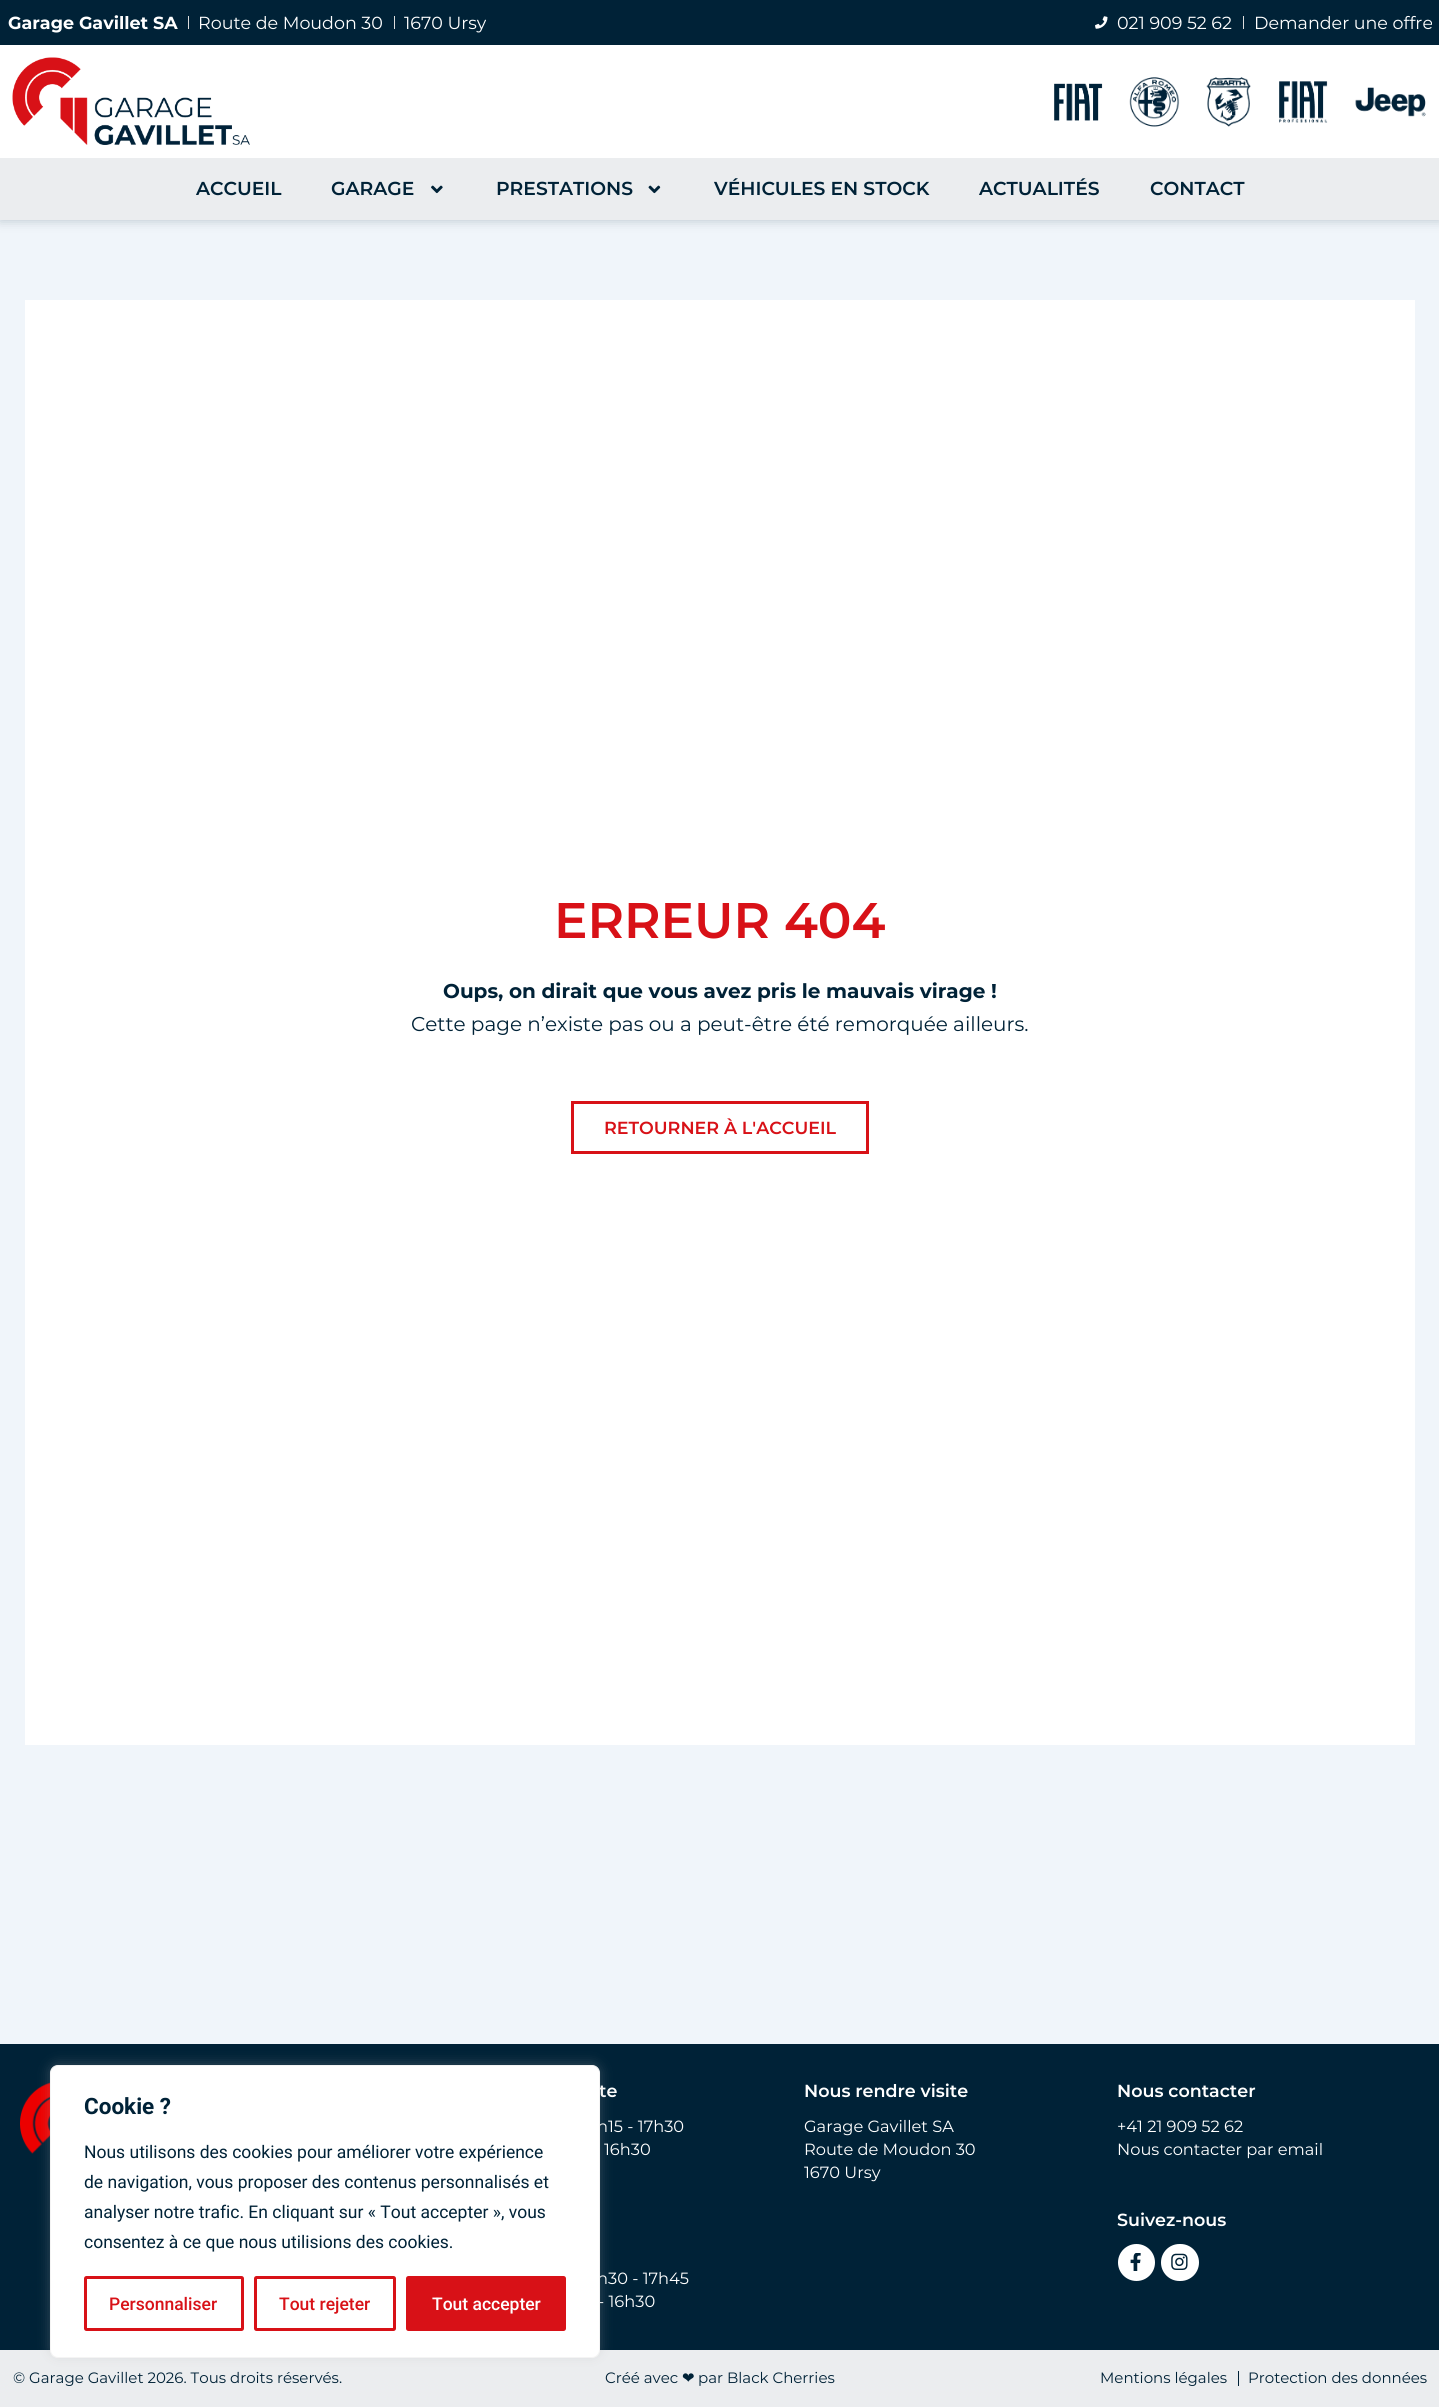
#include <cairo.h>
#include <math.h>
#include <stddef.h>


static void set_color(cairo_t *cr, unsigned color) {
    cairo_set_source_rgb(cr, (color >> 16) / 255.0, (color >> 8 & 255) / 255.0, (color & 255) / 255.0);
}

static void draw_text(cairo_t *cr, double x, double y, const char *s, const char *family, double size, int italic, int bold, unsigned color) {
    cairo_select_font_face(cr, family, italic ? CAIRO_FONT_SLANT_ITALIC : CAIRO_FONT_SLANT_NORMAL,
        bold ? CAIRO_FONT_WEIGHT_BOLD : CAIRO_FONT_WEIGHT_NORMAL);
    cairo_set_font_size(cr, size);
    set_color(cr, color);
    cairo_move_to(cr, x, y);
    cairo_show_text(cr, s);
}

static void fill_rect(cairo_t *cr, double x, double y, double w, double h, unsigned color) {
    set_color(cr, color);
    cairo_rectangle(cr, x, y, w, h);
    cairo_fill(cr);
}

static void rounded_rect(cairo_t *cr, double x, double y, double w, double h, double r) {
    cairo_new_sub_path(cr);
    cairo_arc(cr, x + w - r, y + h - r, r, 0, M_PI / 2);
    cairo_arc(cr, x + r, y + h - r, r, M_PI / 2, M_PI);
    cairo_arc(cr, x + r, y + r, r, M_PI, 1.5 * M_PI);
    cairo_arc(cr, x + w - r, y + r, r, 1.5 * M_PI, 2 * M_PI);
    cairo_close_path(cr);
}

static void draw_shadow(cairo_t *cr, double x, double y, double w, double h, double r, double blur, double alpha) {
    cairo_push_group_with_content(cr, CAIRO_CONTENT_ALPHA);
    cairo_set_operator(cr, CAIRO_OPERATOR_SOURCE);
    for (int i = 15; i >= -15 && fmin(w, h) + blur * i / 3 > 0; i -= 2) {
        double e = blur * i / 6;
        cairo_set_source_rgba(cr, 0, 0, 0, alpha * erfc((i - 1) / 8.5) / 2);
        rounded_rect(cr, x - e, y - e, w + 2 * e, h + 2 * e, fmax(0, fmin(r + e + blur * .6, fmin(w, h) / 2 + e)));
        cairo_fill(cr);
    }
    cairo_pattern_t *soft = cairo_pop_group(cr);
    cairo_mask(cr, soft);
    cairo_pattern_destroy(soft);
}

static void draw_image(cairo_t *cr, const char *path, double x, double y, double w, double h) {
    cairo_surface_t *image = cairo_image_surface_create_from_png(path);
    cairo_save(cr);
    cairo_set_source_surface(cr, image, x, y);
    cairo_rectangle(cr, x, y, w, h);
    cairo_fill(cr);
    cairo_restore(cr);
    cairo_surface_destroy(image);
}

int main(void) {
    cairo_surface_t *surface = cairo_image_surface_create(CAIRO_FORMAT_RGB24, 1439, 2407);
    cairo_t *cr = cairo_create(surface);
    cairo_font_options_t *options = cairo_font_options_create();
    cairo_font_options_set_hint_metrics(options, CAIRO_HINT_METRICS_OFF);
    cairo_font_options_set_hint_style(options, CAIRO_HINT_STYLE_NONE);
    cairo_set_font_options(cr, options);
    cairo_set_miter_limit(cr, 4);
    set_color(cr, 0xF0F5FA);
    cairo_paint(cr);
    fill_rect(cr, 0, 0, 1439, 45, 0x002237);
    draw_text(cr, 8, 29, "Garage Gavillet SA", "Montserrat", 17.5, 0, 1, 0xFFFFFF);
    fill_rect(cr, 188, 16, 1, 13, 0xDDDDDD);
    draw_text(cr, 198, 29, "Route de Moudon 30", "Montserrat", 17.5, 0, 0, 0xFFFFFF);
    fill_rect(cr, 394, 16, 1, 13, 0xDDDDDD);
    cairo_save(cr);
    cairo_rectangle(cr, 8, 6, 478, 33);
    cairo_clip(cr);
    draw_text(cr, 404, 29, "1670 Ursy", "Montserrat", 17.5, 0, 0, 0xFFFFFF);
    cairo_restore(cr);
    draw_image(cr, "assets/img1.png", 1095, 16, 13, 13);
    draw_text(cr, 1117, 29, "021 909 52 62", "Montserrat", 17.5, 0, 0, 0xFFFFFF);
    fill_rect(cr, 1243, 16, 1, 13, 0xDDDDDD);
    draw_text(cr, 1254, 29, "Demander une offre", "Montserrat", 17.5, 0, 0, 0xFFFFFF);
    set_color(cr, 0x002237);
    draw_shadow(cr, 0, 158, 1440, 62, 0, 6, 0.24);
    fill_rect(cr, 0, 45, 1439, 113, 0xFFFFFF);
    draw_image(cr, "assets/img2.png", 12, 57, 238, 88);
    draw_image(cr, "assets/img3.png", 1054, 83, 49, 38);
    draw_image(cr, "assets/img4.png", 1129, 77, 51, 50);
    draw_image(cr, "assets/img5.png", 1206, 77, 45, 50);
    draw_image(cr, "assets/img6.png", 1279, 81, 49, 42);
    draw_image(cr, "assets/img7.png", 1355, 87, 71, 30);
    fill_rect(cr, 0, 158, 1439, 62, 0xEBEDEF);
    draw_text(cr, 196, 195, "ACCUEIL", "Montserrat SemiBold", 18.75, 0, 0, 0x002237);
    draw_text(cr, 331, 195, "GARAGE", "Montserrat SemiBold", 18.75, 0, 0, 0x002237);
    draw_image(cr, "assets/img8.png", 431, 185, 12, 9);
    draw_text(cr, 496, 195, "PRESTATIONS", "Montserrat SemiBold", 18.75, 0, 0, 0x002237);
    draw_image(cr, "assets/img9.png", 648, 185, 13, 9);
    draw_text(cr, 714, 195, "VÉHICULES EN STOCK", "Montserrat SemiBold", 18.75, 0, 0, 0x002237);
    draw_text(cr, 979, 195, "ACTUALITÉS", "Montserrat SemiBold", 18.75, 0, 0, 0x002237);
    draw_text(cr, 1150, 195, "CONTACT", "Montserrat SemiBold", 18.75, 0, 0, 0x002237);
    fill_rect(cr, 25, 300, 1390, 1445, 0xFFFFFF);
    draw_text(cr, 554, 938, "ERREUR 404", "Montserrat SemiBold", 50, 0, 0, 0xD81117);
    draw_text(cr, 443, 998, "Oups, on dirait que vous avez pris le mauvais virage !", "Montserrat", 20, 0, 1, 0x002237);
    draw_text(cr, 411, 1031, "Cette page n’existe pas ou a peut-être été remorquée ailleurs.", "Montserrat", 20, 0, 0, 0x002237);
    cairo_rectangle(cr, 572.5, 1102.5, 295, 50);
    set_color(cr, 0xD81117);
    cairo_set_line_width(cr, 3);
    cairo_stroke(cr);
    draw_text(cr, 604, 1134, "RETOURNER À L'ACCUEIL", "Montserrat SemiBold", 17.5, 0, 0, 0xD81117);
    fill_rect(cr, 0, 2044, 1439, 306, 0x002237);
    draw_image(cr, "assets/img10.png", 20, 2082, 30, 72);
    draw_text(cr, 599, 2097, "te", "Montserrat SemiBold", 17.5, 0, 0, 0xFFFFFF);
    draw_text(cr, 597, 2132, "h15 - 17h30", "Montserrat", 16.25, 0, 0, 0xFFFFFF);
    draw_text(cr, 604, 2155, "16h30", "Montserrat", 16.25, 0, 0, 0xFFFFFF);
    draw_text(cr, 597, 2284, "h30 - 17h45", "Montserrat", 16.25, 0, 0, 0xFFFFFF);
    draw_text(cr, 598, 2307, "- 16h30", "Montserrat", 16.25, 0, 0, 0xFFFFFF);
    draw_text(cr, 804, 2097, "Nous rendre visite", "Montserrat SemiBold", 17.5, 0, 0, 0xFFFFFF);
    draw_text(cr, 804, 2132, "Garage Gavillet SA", "Montserrat", 16.25, 0, 0, 0xFFFFFF);
    draw_text(cr, 804, 2155, "Route de Moudon 30", "Montserrat", 16.25, 0, 0, 0xFFFFFF);
    draw_text(cr, 804, 2178, "1670 Ursy", "Montserrat", 16.25, 0, 0, 0xFFFFFF);
    draw_text(cr, 1117, 2097, "Nous contacter", "Montserrat SemiBold", 17.5, 0, 0, 0xFFFFFF);
    draw_text(cr, 1117, 2132, "+41 21 909 52 62", "Montserrat", 16.25, 0, 0, 0xFFFFFF);
    draw_text(cr, 1117, 2155, "Nous contacter par email", "Montserrat", 16.25, 0, 0, 0xFFFFFF);
    draw_text(cr, 1117, 2226, "Suivez-nous", "Montserrat SemiBold", 17.5, 0, 0, 0xFFFFFF);
    cairo_new_path(cr);
    cairo_arc(cr, 1136.5, 2262.5, 18.5, 0, 2 * M_PI);
    cairo_fill(cr);
    draw_image(cr, "assets/img11.png", 1130, 2253, 11, 18);
    rounded_rect(cr, 1161, 2244, 38, 37, 18.5);
    cairo_fill(cr);
    draw_image(cr, "assets/img12.png", 1171, 2253, 17, 17);
    fill_rect(cr, 0, 2350, 1439, 57, 0xEBEDEF);
    draw_text(cr, 13, 2383, "© Garage Gavillet 2026. Tous droits réservés.", "Montserrat", 15, 0, 0, 0x002237);
    draw_text(cr, 605, 2383, "Créé avec", "Montserrat", 15, 0, 0, 0x002237);
    draw_text(cr, 682, 2383, "❤", "DejaVu Sans", 15, 0, 0, 0x002237);
    draw_text(cr, 698, 2383, "par Black Cherries", "Montserrat", 15, 0, 0, 0x002237);
    draw_text(cr, 1100, 2383, "Mentions légales", "Montserrat", 15, 0, 0, 0x002237);
    fill_rect(cr, 1238, 2371, 1, 15, 0x002237);
    draw_text(cr, 1248, 2383, "Protection des données", "Montserrat", 15, 0, 0, 0x002237);
    set_color(cr, 0xACABAB);
    draw_shadow(cr, 50, 2064, 550, 292, 8, 6, 0.3);
    set_color(cr, 0xFFFFFF);
    rounded_rect(cr, 50.5, 2065.5, 549, 292, 7.5);
    cairo_fill_preserve(cr);
    set_color(cr, 0xF4F4F4);
    cairo_set_line_width(cr, 1);
    cairo_stroke(cr);
    draw_text(cr, 84, 2114, "Cookie ?", "Roboto", 22.5, 0, 1, 0x002237);
    draw_text(cr, 84, 2158, "Nous utilisons des cookies pour améliorer votre expérience", "Roboto", 17.5, 0, 0, 0x002237);
    draw_text(cr, 84, 2188, "de navigation, vous proposer des contenus personnalisés et", "Roboto", 17.5, 0, 0, 0x002237);
    draw_text(cr, 84, 2218, "analyser notre trafic. En cliquant sur « Tout accepter », vous", "Roboto", 17.5, 0, 0, 0x002237);
    draw_text(cr, 84, 2248, "consentez à ce que nous utilisions des cookies.", "Roboto", 17.5, 0, 0, 0x002237);
    rounded_rect(cr, 85.5, 2277.5, 157, 52, 1);
    set_color(cr, 0xD81117);
    cairo_set_line_width(cr, 3);
    cairo_stroke(cr);
    draw_text(cr, 109, 2310, "Personnaliser", "Roboto Medium", 17.5, 0, 0, 0xD81117);
    rounded_rect(cr, 255.5, 2277.5, 139, 52, 1);
    cairo_stroke(cr);
    draw_text(cr, 279, 2310, "Tout rejeter", "Roboto Medium", 17.5, 0, 0, 0xD81117);
    rounded_rect(cr, 407.5, 2277.5, 157, 52, 1);
    cairo_fill_preserve(cr);
    cairo_stroke(cr);
    draw_text(cr, 432, 2310, "Tout accepter", "Roboto Medium", 17.5, 0, 0, 0xFFFFFF);
    cairo_surface_write_to_png(surface, "output.png");
    cairo_font_options_destroy(options);
    cairo_destroy(cr);
    cairo_surface_destroy(surface);
    return 0;
}
